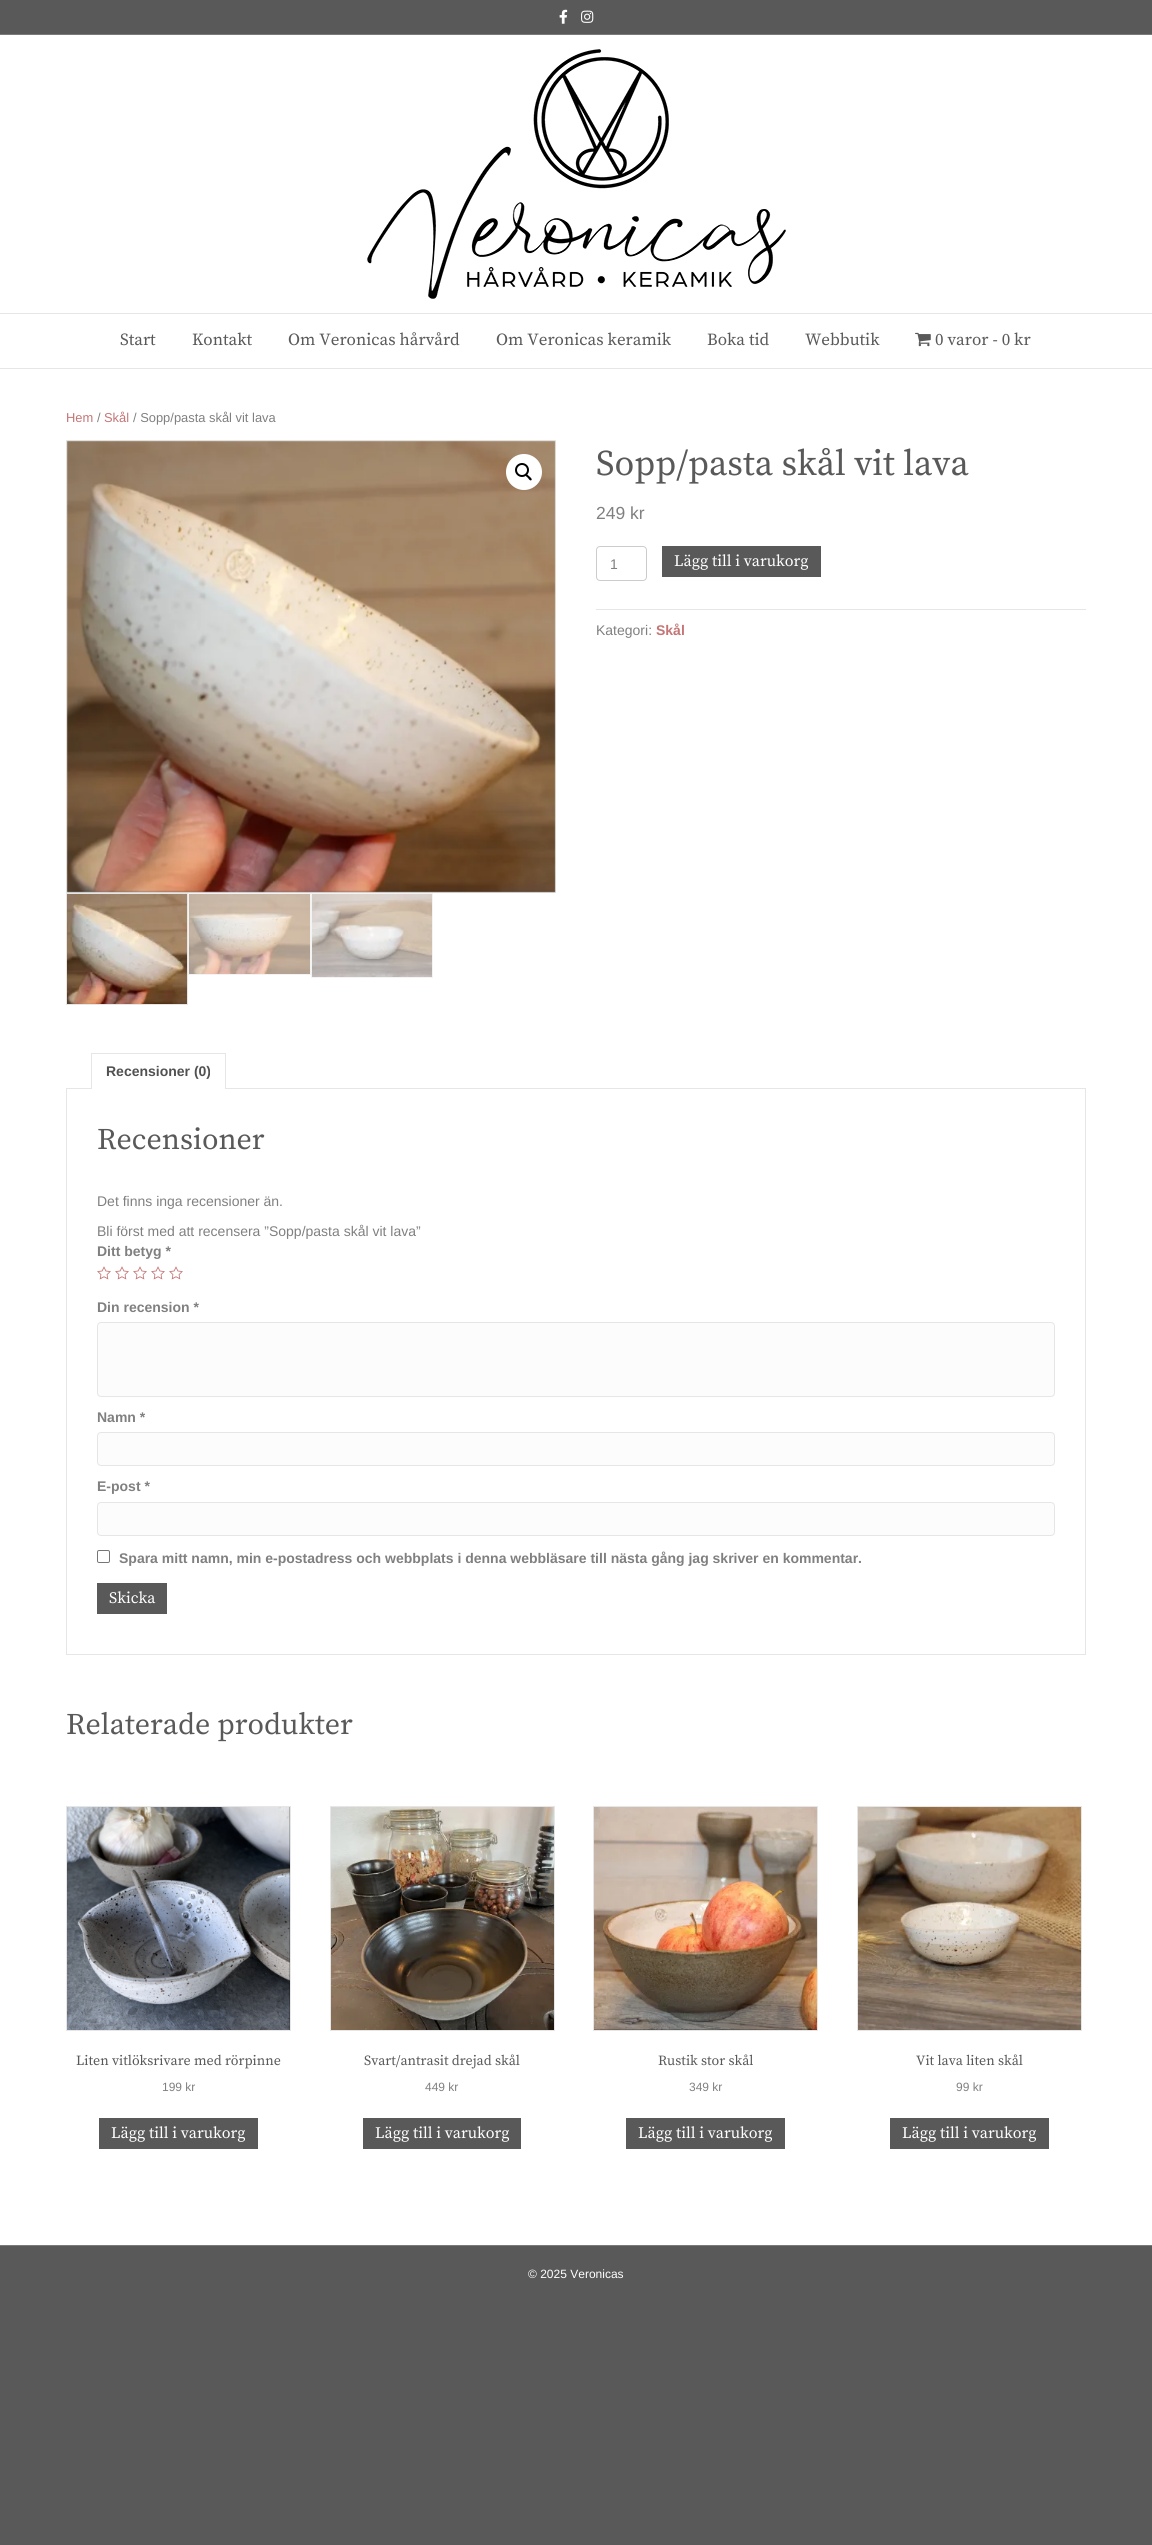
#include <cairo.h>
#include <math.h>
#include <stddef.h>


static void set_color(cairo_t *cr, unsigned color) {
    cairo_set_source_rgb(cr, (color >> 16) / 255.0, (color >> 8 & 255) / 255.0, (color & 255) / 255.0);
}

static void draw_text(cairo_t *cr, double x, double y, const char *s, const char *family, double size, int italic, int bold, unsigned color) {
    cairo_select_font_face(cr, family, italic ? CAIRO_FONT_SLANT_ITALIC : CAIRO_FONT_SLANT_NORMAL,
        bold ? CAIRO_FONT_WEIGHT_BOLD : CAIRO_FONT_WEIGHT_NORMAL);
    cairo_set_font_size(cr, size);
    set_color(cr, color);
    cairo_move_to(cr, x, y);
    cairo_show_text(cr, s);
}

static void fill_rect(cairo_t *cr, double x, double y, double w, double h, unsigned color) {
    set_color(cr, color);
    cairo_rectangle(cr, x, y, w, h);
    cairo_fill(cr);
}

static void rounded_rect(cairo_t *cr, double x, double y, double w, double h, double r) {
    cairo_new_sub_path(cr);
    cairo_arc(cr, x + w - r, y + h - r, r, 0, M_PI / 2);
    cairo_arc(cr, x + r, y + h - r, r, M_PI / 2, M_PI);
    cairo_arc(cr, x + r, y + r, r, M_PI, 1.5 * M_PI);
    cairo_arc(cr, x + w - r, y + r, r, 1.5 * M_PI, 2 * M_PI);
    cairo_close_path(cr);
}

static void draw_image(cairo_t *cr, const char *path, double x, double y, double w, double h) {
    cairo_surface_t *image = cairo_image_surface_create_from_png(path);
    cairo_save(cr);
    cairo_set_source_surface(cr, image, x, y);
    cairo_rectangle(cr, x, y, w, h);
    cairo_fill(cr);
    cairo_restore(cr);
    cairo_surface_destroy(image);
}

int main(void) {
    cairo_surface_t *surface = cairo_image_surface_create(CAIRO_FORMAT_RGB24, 1152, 2545);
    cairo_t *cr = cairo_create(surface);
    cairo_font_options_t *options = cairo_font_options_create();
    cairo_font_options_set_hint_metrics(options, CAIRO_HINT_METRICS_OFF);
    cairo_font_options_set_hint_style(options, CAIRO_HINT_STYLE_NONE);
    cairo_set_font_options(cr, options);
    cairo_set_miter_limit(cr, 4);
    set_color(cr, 0x595959);
    cairo_paint(cr);
    fill_rect(cr, 0, 34, 1152, 1, 0x7A7A7A);
    draw_image(cr, "assets/img1.png", 559, 9, 9, 15);
    draw_image(cr, "assets/img2.png", 581, 10, 13, 13);
    fill_rect(cr, 0, 35, 1152, 333, 0xFFFFFF);
    draw_image(cr, "assets/img3.png", 367, 49, 419, 250);
    fill_rect(cr, 0, 313, 1152, 1, 0xE6E6E6);
    fill_rect(cr, 0, 368, 1152, 1, 0xE6E6E6);
    draw_text(cr, 120, 345, "Start", "Source Serif Pro", 17, 0, 0, 0x595959);
    draw_text(cr, 192, 345, "Kontakt", "Source Serif Pro", 17, 0, 0, 0x595959);
    draw_text(cr, 288, 345, "Om Veronicas hårvård", "Source Serif Pro", 17, 0, 0, 0x595959);
    draw_text(cr, 496, 345, "Om Veronicas keramik", "Source Serif Pro", 17, 0, 0, 0x595959);
    draw_text(cr, 707, 345, "Boka tid", "Source Serif Pro", 17, 0, 0, 0x595959);
    draw_text(cr, 805, 345, "Webbutik", "Source Serif Pro", 17, 0, 0, 0x595959);
    draw_image(cr, "assets/img4.png", 915, 332, 16, 15);
    draw_text(cr, 935, 345, "0 varor - 0 kr", "Source Serif Pro", 17, 0, 0, 0x595959);
    fill_rect(cr, 0, 369, 1152, 1876, 0xFFFFFF);
    draw_text(cr, 66, 422, "Hem", "Liberation Sans", 12.9, 0, 0, 0xC47575);
    draw_text(cr, 97, 422, "/", "Liberation Sans", 12.9, 0, 0, 0x808080);
    draw_text(cr, 104, 422, "Skål", "Liberation Sans", 12.9, 0, 0, 0xC47575);
    draw_text(cr, 133, 422, "/ Sopp/pasta skål vit lava", "Liberation Sans", 12.9, 0, 0, 0x808080);
    cairo_rectangle(cr, 66.5, 440.5, 489, 452);
    set_color(cr, 0xE6E6E6);
    cairo_set_line_width(cr, 1);
    cairo_stroke(cr);
    draw_image(cr, "assets/img5.png", 66, 440, 490, 453);
    set_color(cr, 0xFFFFFF);
    cairo_arc(cr, 524, 472, 18, 0, 2 * M_PI);
    cairo_fill(cr);
    cairo_arc(cr, 522, 470, 6, 0, 2 * M_PI);
    set_color(cr, 0x000000);
    cairo_set_line_width(cr, 2);
    cairo_stroke(cr);
    cairo_new_path(cr);
    cairo_move_to(cr, 526, 474.5);
    cairo_curve_to(cr, 527, 473.5, 528.5, 476, 529.5, 476.5);
    cairo_curve_to(cr, 530, 477, 532.5, 479, 531.5, 480);
    cairo_curve_to(cr, 530, 481.5, 528.5, 478.5, 528, 478);
    cairo_curve_to(cr, 527.5, 477.5, 524.5, 475.5, 526, 474.5);
    cairo_close_path(cr);
    cairo_fill(cr);
    cairo_rectangle(cr, 66.5, 893.5, 121, 111);
    set_color(cr, 0xE6E6E6);
    cairo_set_line_width(cr, 1);
    cairo_stroke(cr);
    draw_image(cr, "assets/img6.png", 67, 894, 120, 110);
    cairo_rectangle(cr, 188.5, 893.5, 122, 81);
    set_color(cr, 0xF3F3F3);
    cairo_stroke(cr);
    draw_image(cr, "assets/img7.png", 189, 894, 121, 80);
    cairo_rectangle(cr, 311.5, 893.5, 121, 84);
    cairo_stroke(cr);
    draw_image(cr, "assets/img8.png", 312, 894, 120, 83);
    draw_text(cr, 596, 475, "Sopp/pasta skål vit lava", "Source Serif Pro", 36, 0, 0, 0x595959);
    draw_text(cr, 596, 519, "249 kr", "Liberation Sans", 17.5, 0, 0, 0x808080);
    rounded_rect(cr, 596.5, 546.5, 50, 34, 3.5);
    set_color(cr, 0xCCCCCC);
    cairo_stroke(cr);
    draw_text(cr, 610, 569, "1", "Liberation Sans", 14, 0, 0, 0x808080);
    fill_rect(cr, 662, 546, 159, 31, 0x595959);
    draw_text(cr, 674, 566, "Lägg till i varukorg", "Source Serif Pro", 16, 0, 0, 0xFFFFFF);
    fill_rect(cr, 596, 609, 490, 1, 0xE6E6E6);
    draw_text(cr, 596, 635, "Kategori:", "Liberation Sans", 14, 0, 0, 0x808080);
    draw_text(cr, 656, 635, "Skål", "Liberation Sans", 14, 0, 1, 0xC47575);
    fill_rect(cr, 66, 1088, 1020, 1, 0xE6E6E6);
    fill_rect(cr, 92, 1088, 133, 1, 0xFFFFFF);
    fill_rect(cr, 91, 1053, 135, 1, 0xE6E6E6);
    fill_rect(cr, 225, 1053, 1, 36, 0xE6E6E6);
    fill_rect(cr, 91, 1053, 1, 36, 0xE6E6E6);
    draw_text(cr, 106, 1076, "Recensioner (0)", "Liberation Sans", 14, 0, 1, 0x515151);
    fill_rect(cr, 1085, 1089, 1, 566, 0xE6E6E6);
    fill_rect(cr, 66, 1654, 1020, 1, 0xE6E6E6);
    fill_rect(cr, 66, 1089, 1, 566, 0xE6E6E6);
    draw_text(cr, 97, 1149, "Recensioner", "Source Serif Pro", 30, 0, 0, 0x595959);
    draw_text(cr, 97, 1206, "Det finns inga recensioner än.", "Liberation Sans", 14, 0, 0, 0x808080);
    draw_text(cr, 97, 1236, "Bli först med att recensera ”Sopp/pasta skål vit lava”", "Liberation Sans", 14, 0, 0, 0x808080);
    draw_text(cr, 97, 1256, "Ditt betyg *", "Liberation Sans", 14, 0, 1, 0x808080);
    draw_image(cr, "assets/img9.png", 97, 1266, 14, 14);
    draw_image(cr, "assets/img9.png", 115, 1266, 14, 14);
    draw_image(cr, "assets/img9.png", 133, 1266, 14, 14);
    draw_image(cr, "assets/img9.png", 151, 1266, 14, 14);
    draw_image(cr, "assets/img9.png", 169, 1266, 14, 14);
    draw_text(cr, 97, 1312, "Din recension *", "Liberation Sans", 14, 0, 1, 0x808080);
    set_color(cr, 0xFCFCFC);
    rounded_rect(cr, 97.5, 1322.5, 957, 74, 3.5);
    cairo_fill_preserve(cr);
    set_color(cr, 0xE6E6E6);
    cairo_stroke(cr);
    draw_text(cr, 97, 1422, "Namn *", "Liberation Sans", 14, 0, 1, 0x808080);
    set_color(cr, 0xFCFCFC);
    rounded_rect(cr, 97.5, 1432.5, 957, 33, 3.5);
    cairo_fill_preserve(cr);
    set_color(cr, 0xE6E6E6);
    cairo_stroke(cr);
    draw_text(cr, 97, 1491, "E-post *", "Liberation Sans", 14, 0, 1, 0x808080);
    set_color(cr, 0xFCFCFC);
    rounded_rect(cr, 97.5, 1502.5, 957, 33, 3.5);
    cairo_fill_preserve(cr);
    set_color(cr, 0xE6E6E6);
    cairo_stroke(cr);
    rounded_rect(cr, 97.5, 1550.5, 12, 12, 1.5);
    set_color(cr, 0x767676);
    cairo_stroke(cr);
    draw_text(cr, 119, 1563, "Spara mitt namn, min e-postadress och webbplats i denna webbläsare till nästa gång jag skriver en kommentar.", "Liberation Sans", 14, 0, 1, 0x808080);
    fill_rect(cr, 97, 1583, 70, 31, 0x595959);
    draw_text(cr, 109, 1603, "Skicka", "Source Serif Pro", 16, 0, 0, 0xFFFFFF);
    draw_text(cr, 66, 1734, "Relaterade produkter", "Source Serif Pro", 30, 0, 0, 0x595959);
    cairo_rectangle(cr, 66.5, 1806.5, 224, 224);
    set_color(cr, 0xE6E6E6);
    cairo_stroke(cr);
    draw_image(cr, "assets/img10.png", 67, 1807, 223, 223);
    draw_text(cr, 76, 2065, "Liten vitlöksrivare med rörpinne", "Source Serif Pro", 14, 0, 0, 0x595959);
    draw_text(cr, 162, 2091, "199 kr", "Liberation Sans", 12, 0, 0, 0x808080);
    fill_rect(cr, 99, 2118, 159, 31, 0x595959);
    draw_text(cr, 111, 2138, "Lägg till i varukorg", "Source Serif Pro", 16, 0, 0, 0xFFFFFF);
    cairo_rectangle(cr, 330.5, 1806.5, 224, 224);
    set_color(cr, 0xE6E6E6);
    cairo_stroke(cr);
    draw_image(cr, "assets/img11.png", 331, 1807, 223, 223);
    draw_text(cr, 364, 2065, "Svart/antrasit drejad skål", "Source Serif Pro", 14, 0, 0, 0x595959);
    draw_text(cr, 425, 2091, "449 kr", "Liberation Sans", 12, 0, 0, 0x808080);
    fill_rect(cr, 363, 2118, 158, 31, 0x595959);
    draw_text(cr, 375, 2138, "Lägg till i varukorg", "Source Serif Pro", 16, 0, 0, 0xFFFFFF);
    cairo_rectangle(cr, 593.5, 1806.5, 224, 224);
    set_color(cr, 0xE6E6E6);
    cairo_stroke(cr);
    draw_image(cr, "assets/img12.png", 594, 1807, 223, 223);
    draw_text(cr, 658, 2065, "Rustik stor skål", "Source Serif Pro", 14, 0, 0, 0x595959);
    draw_text(cr, 689, 2091, "349 kr", "Liberation Sans", 12, 0, 0, 0x808080);
    fill_rect(cr, 626, 2118, 159, 31, 0x595959);
    draw_text(cr, 638, 2138, "Lägg till i varukorg", "Source Serif Pro", 16, 0, 0, 0xFFFFFF);
    cairo_rectangle(cr, 857.5, 1806.5, 224, 224);
    set_color(cr, 0xE6E6E6);
    cairo_stroke(cr);
    draw_image(cr, "assets/img13.png", 858, 1807, 223, 223);
    draw_text(cr, 916, 2065, "Vit lava liten skål", "Source Serif Pro", 14, 0, 0, 0x595959);
    draw_text(cr, 956, 2091, "99 kr", "Liberation Sans", 12, 0, 0, 0x808080);
    fill_rect(cr, 890, 2118, 159, 31, 0x595959);
    draw_text(cr, 902, 2138, "Lägg till i varukorg", "Source Serif Pro", 16, 0, 0, 0xFFFFFF);
    fill_rect(cr, 0, 2245, 1152, 1, 0x7A7A7A);
    draw_text(cr, 528, 2278, "© 2025 Veronicas", "Liberation Sans", 12, 0, 0, 0xFFFFFF);
    cairo_surface_write_to_png(surface, "output.png");
    cairo_font_options_destroy(options);
    cairo_destroy(cr);
    cairo_surface_destroy(surface);
    return 0;
}
